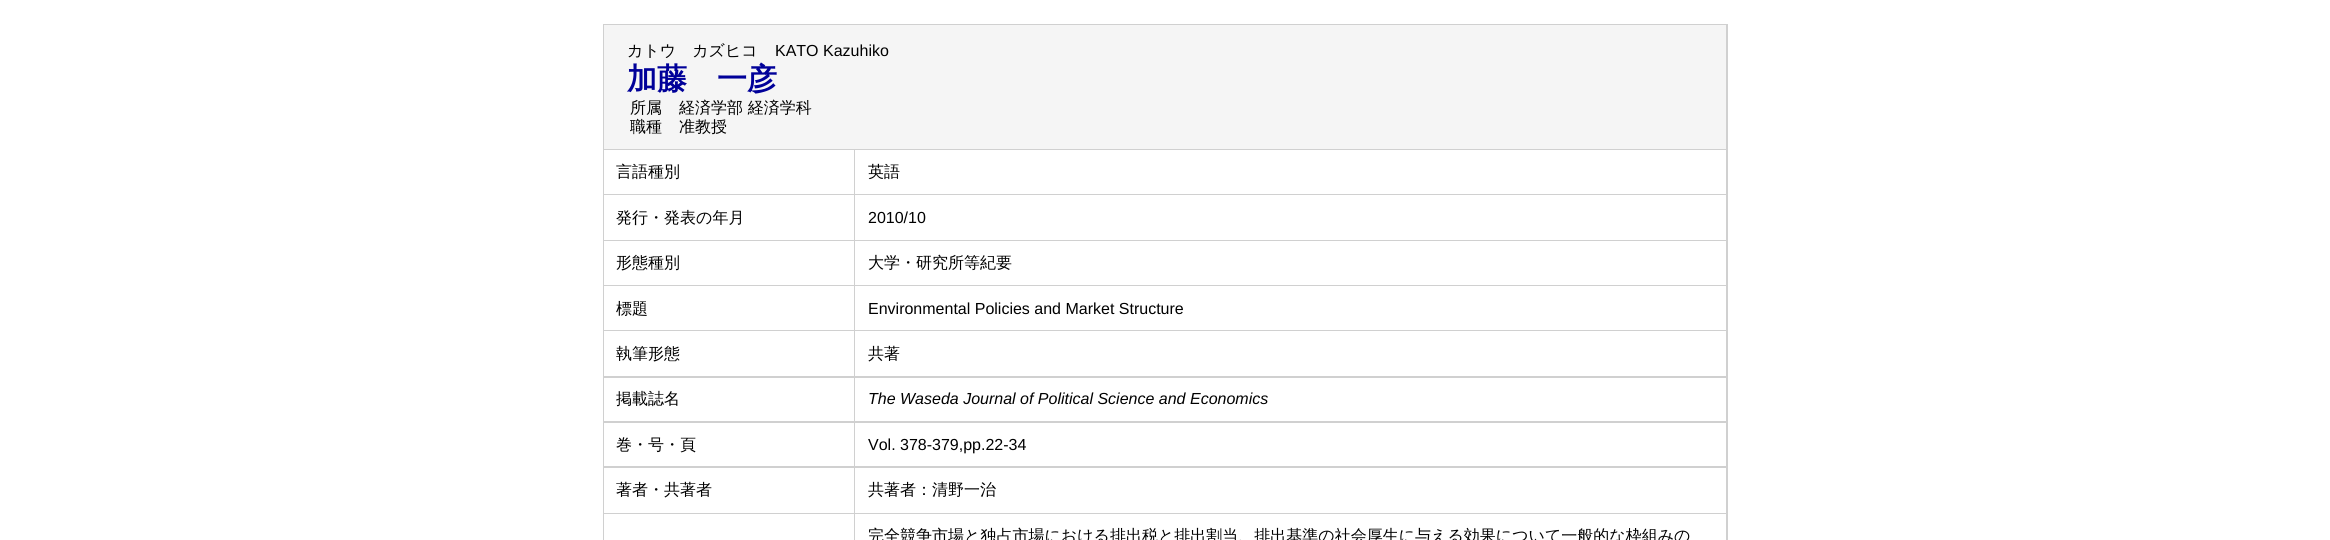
#include <cairo.h>
#include <math.h>
#include <stddef.h>


static void set_color(cairo_t *cr, unsigned color) {
    cairo_set_source_rgb(cr, (color >> 16) / 255.0, (color >> 8 & 255) / 255.0, (color & 255) / 255.0);
}

static void draw_text(cairo_t *cr, double x, double y, const char *s, const char *family, double size, int italic, int bold, unsigned color) {
    cairo_select_font_face(cr, family, italic ? CAIRO_FONT_SLANT_ITALIC : CAIRO_FONT_SLANT_NORMAL,
        bold ? CAIRO_FONT_WEIGHT_BOLD : CAIRO_FONT_WEIGHT_NORMAL);
    cairo_set_font_size(cr, size);
    set_color(cr, color);
    cairo_move_to(cr, x, y);
    cairo_show_text(cr, s);
}

static void fill_rect(cairo_t *cr, double x, double y, double w, double h, unsigned color) {
    set_color(cr, color);
    cairo_rectangle(cr, x, y, w, h);
    cairo_fill(cr);
}

int main(void) {
    cairo_surface_t *surface = cairo_image_surface_create(CAIRO_FORMAT_RGB24, 2330, 540);
    cairo_t *cr = cairo_create(surface);
    cairo_font_options_t *options = cairo_font_options_create();
    cairo_font_options_set_hint_metrics(options, CAIRO_HINT_METRICS_OFF);
    cairo_font_options_set_hint_style(options, CAIRO_HINT_STYLE_NONE);
    cairo_set_font_options(cr, options);
    cairo_set_miter_limit(cr, 4);
    set_color(cr, 0xFFFFFF);
    cairo_paint(cr);
    fill_rect(cr, 603, 24, 1125, 516, 0xD0D0D0);
    fill_rect(cr, 604, 25, 1122, 124, 0xF5F5F5);
    draw_text(cr, 627, 56, "カトウ　カズヒコ", "WenQuanYi Zen Hei Medium", 16, 0, 0, 0x000000);
    draw_text(cr, 775, 56, "KATO Kazuhiko", "Liberation Sans", 16, 0, 0, 0x000000);
    draw_text(cr, 627, 89, "加藤　一彦", "WenQuanYi Zen Hei", 30, 0, 1, 0x000099);
    draw_text(cr, 630, 113, "所属", "WenQuanYi Zen Hei Medium", 16, 0, 0, 0x000000);
    draw_text(cr, 679, 113, "経済学部 経済学科", "WenQuanYi Zen Hei Medium", 16, 0, 0, 0x000000);
    draw_text(cr, 630, 132, "職種", "WenQuanYi Zen Hei Medium", 16, 0, 0, 0x000000);
    draw_text(cr, 679, 132, "准教授", "WenQuanYi Zen Hei Medium", 16, 0, 0, 0x000000);
    fill_rect(cr, 604, 150, 250, 44, 0xFFFFFF);
    draw_text(cr, 616, 177, "言語種別", "WenQuanYi Zen Hei Medium", 16, 0, 0, 0x000000);
    fill_rect(cr, 855, 150, 871, 44, 0xFFFFFF);
    draw_text(cr, 868, 177, "英語", "WenQuanYi Zen Hei Medium", 16, 0, 0, 0x000000);
    fill_rect(cr, 604, 195, 250, 45, 0xFFFFFF);
    draw_text(cr, 616, 223, "発行・発表の年月", "WenQuanYi Zen Hei Medium", 16, 0, 0, 0x000000);
    fill_rect(cr, 855, 195, 871, 45, 0xFFFFFF);
    draw_text(cr, 868, 223, "2010/10", "Liberation Sans", 16, 0, 0, 0x000000);
    fill_rect(cr, 604, 241, 250, 44, 0xFFFFFF);
    draw_text(cr, 616, 268, "形態種別", "WenQuanYi Zen Hei Medium", 16, 0, 0, 0x000000);
    fill_rect(cr, 855, 241, 871, 44, 0xFFFFFF);
    draw_text(cr, 868, 268, "大学・研究所等紀要", "WenQuanYi Zen Hei Medium", 16, 0, 0, 0x000000);
    fill_rect(cr, 604, 286, 250, 44, 0xFFFFFF);
    draw_text(cr, 616, 314, "標題", "WenQuanYi Zen Hei Medium", 16, 0, 0, 0x000000);
    fill_rect(cr, 855, 286, 871, 44, 0xFFFFFF);
    draw_text(cr, 868, 314, "Environmental Policies and Market Structure", "Liberation Sans", 16, 0, 0, 0x000000);
    fill_rect(cr, 604, 331, 250, 45, 0xFFFFFF);
    draw_text(cr, 616, 359, "執筆形態", "WenQuanYi Zen Hei Medium", 16, 0, 0, 0x000000);
    fill_rect(cr, 855, 331, 871, 45, 0xFFFFFF);
    draw_text(cr, 868, 359, "共著", "WenQuanYi Zen Hei Medium", 16, 0, 0, 0x000000);
    fill_rect(cr, 604, 378, 250, 43, 0xFFFFFF);
    draw_text(cr, 616, 404, "掲載誌名", "WenQuanYi Zen Hei Medium", 16, 0, 0, 0x000000);
    fill_rect(cr, 855, 378, 871, 43, 0xFFFFFF);
    draw_text(cr, 868, 404, "The Waseda Journal of Political Science and Economics", "Liberation Sans", 16, 1, 0, 0x000000);
    fill_rect(cr, 604, 423, 250, 43, 0xFFFFFF);
    draw_text(cr, 616, 450, "巻・号・頁", "WenQuanYi Zen Hei Medium", 16, 0, 0, 0x000000);
    fill_rect(cr, 855, 423, 871, 43, 0xFFFFFF);
    draw_text(cr, 868, 450, "Vol. 378-379,pp.22-34", "Liberation Sans", 16, 0, 0, 0x000000);
    fill_rect(cr, 604, 468, 250, 45, 0xFFFFFF);
    draw_text(cr, 616, 495, "著者・共著者", "WenQuanYi Zen Hei Medium", 16, 0, 0, 0x000000);
    fill_rect(cr, 855, 468, 871, 45, 0xFFFFFF);
    draw_text(cr, 868, 495, "共著者：清野一治", "WenQuanYi Zen Hei Medium", 16, 0, 0, 0x000000);
    fill_rect(cr, 604, 514, 250, 26, 0xFFFFFF);
    fill_rect(cr, 855, 514, 871, 26, 0xFFFFFF);
    draw_text(cr, 868, 541, "完全競争市場と独占市場における排出税と排出割当、排出基準の社会厚生に与える効果について一般的な枠組みの", "WenQuanYi Zen Hei Medium", 16, 0, 0, 0x000000);
    cairo_surface_write_to_png(surface, "output.png");
    cairo_font_options_destroy(options);
    cairo_destroy(cr);
    cairo_surface_destroy(surface);
    return 0;
}
